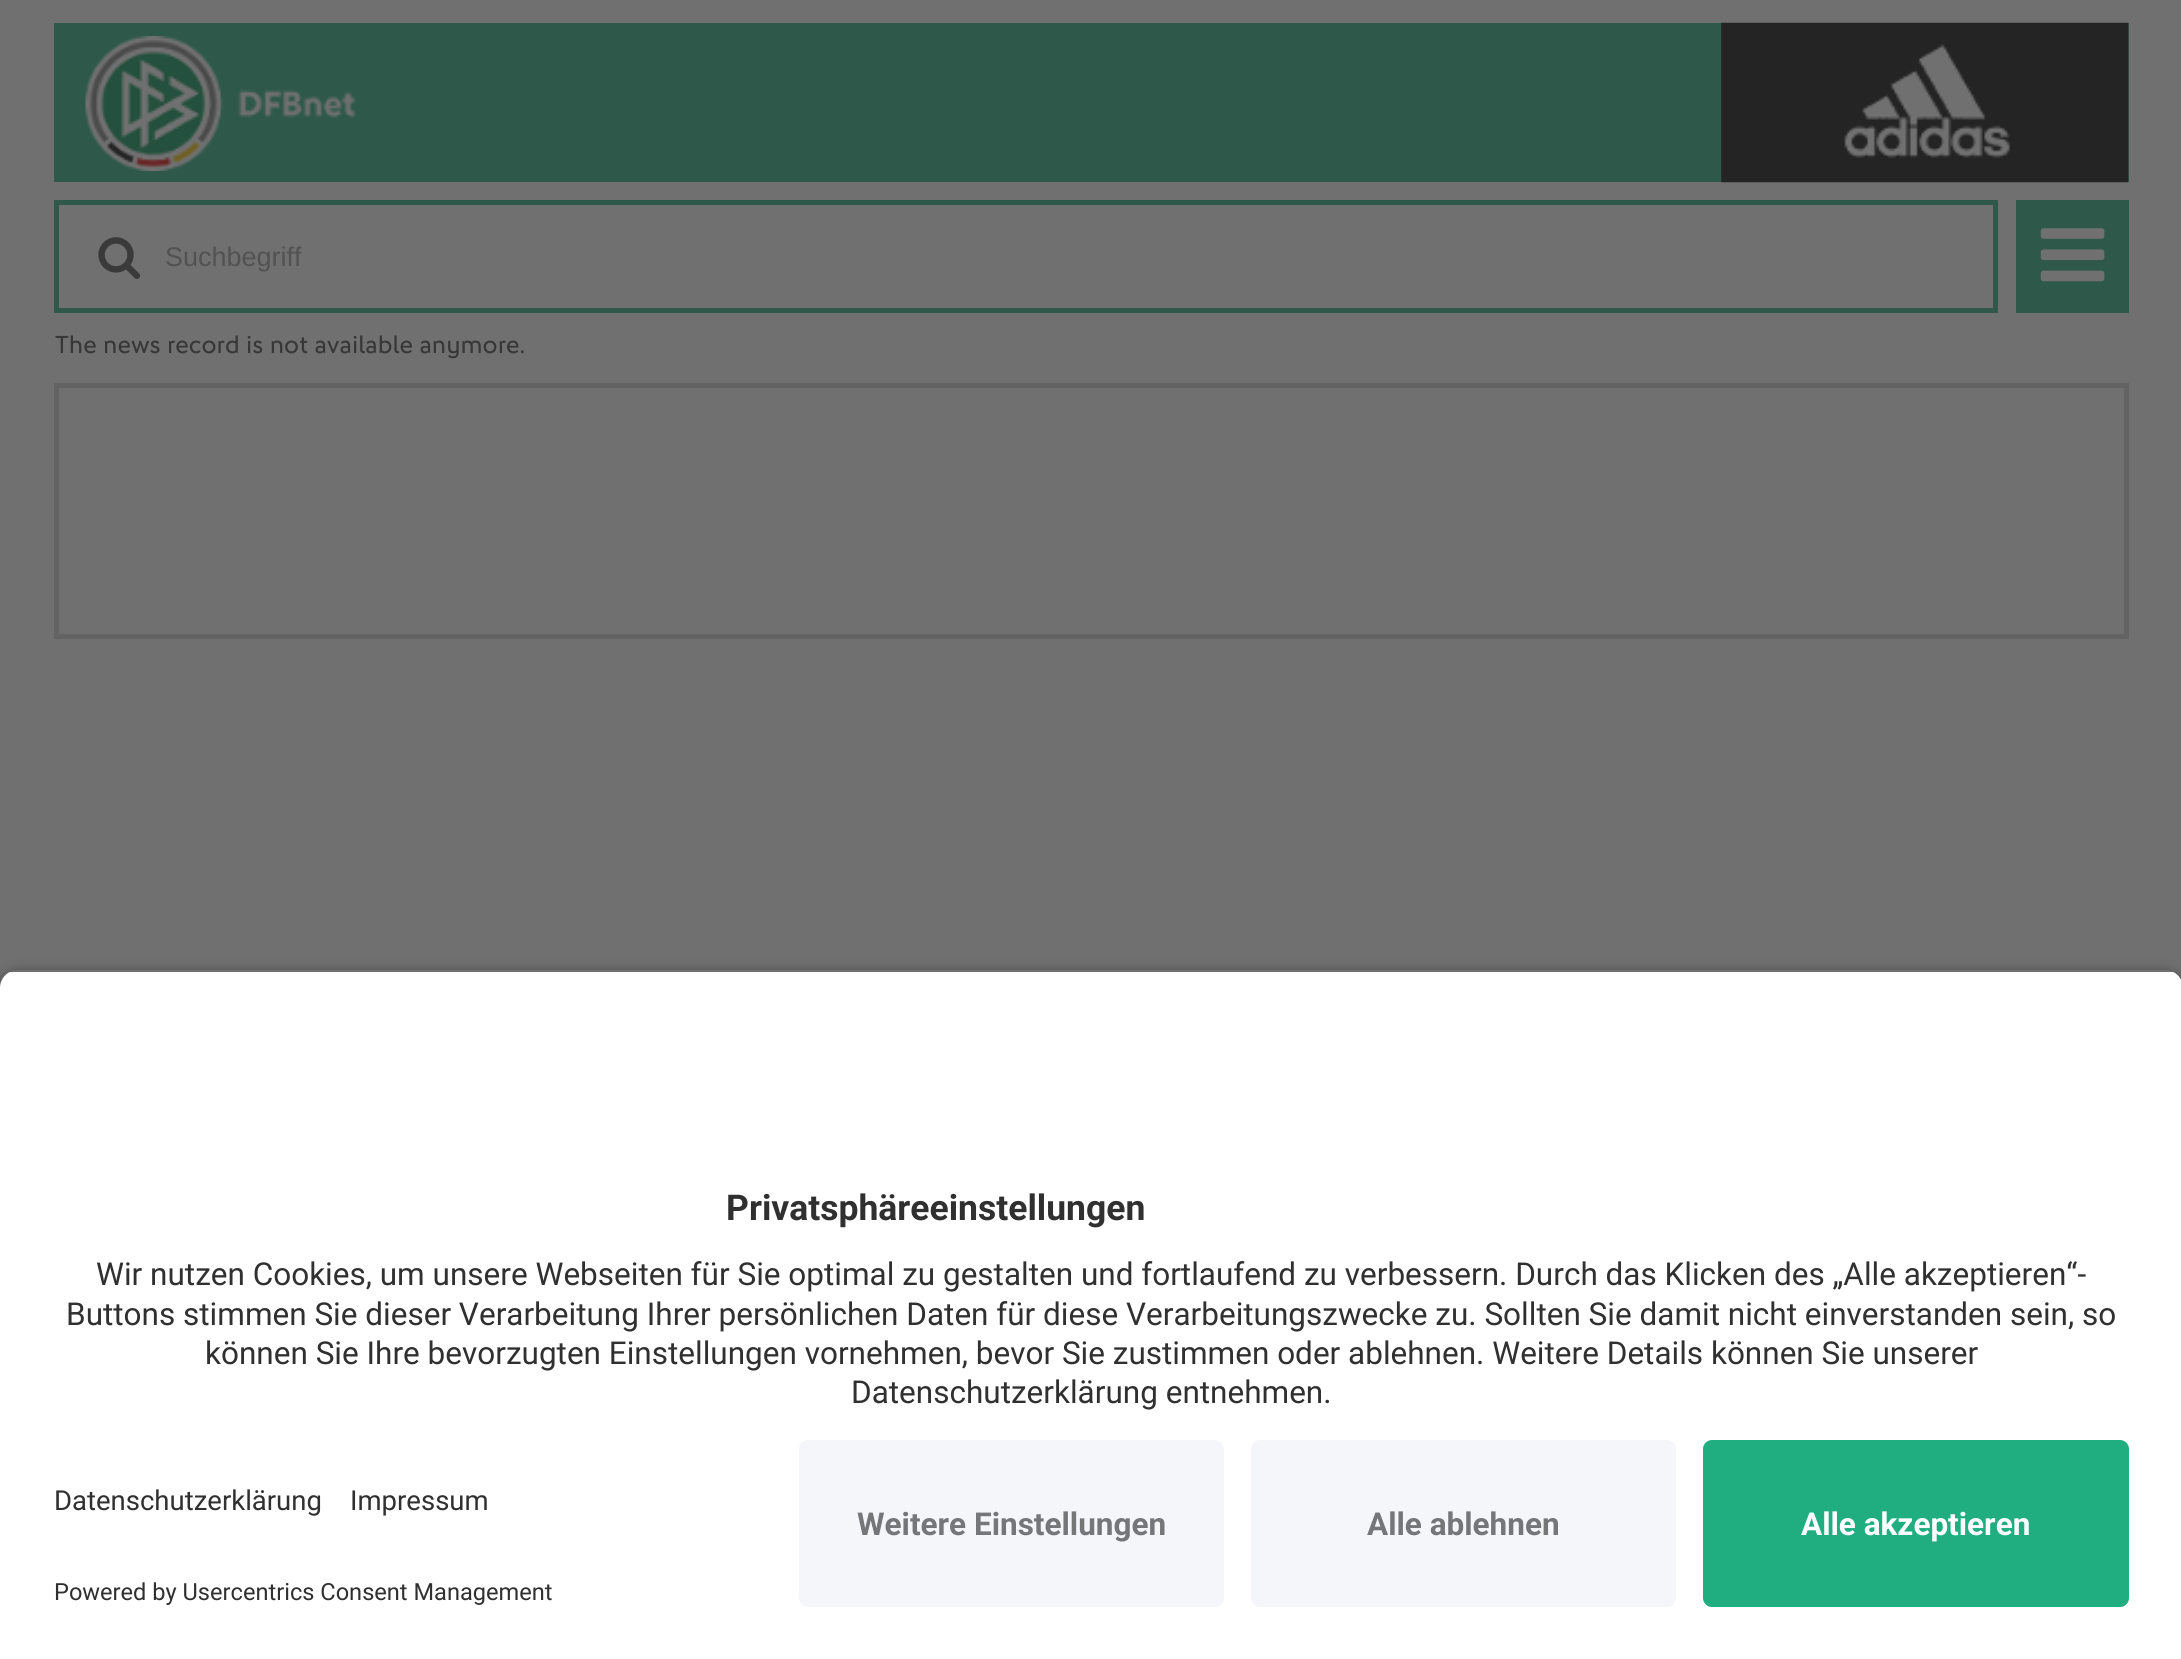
#include <cairo.h>
#include <math.h>
#include <stddef.h>


static void set_color(cairo_t *cr, unsigned color) {
    cairo_set_source_rgb(cr, (color >> 16) / 255.0, (color >> 8 & 255) / 255.0, (color & 255) / 255.0);
}

static void draw_text(cairo_t *cr, double x, double y, const char *s, const char *family, double size, int italic, int bold, unsigned color) {
    cairo_select_font_face(cr, family, italic ? CAIRO_FONT_SLANT_ITALIC : CAIRO_FONT_SLANT_NORMAL,
        bold ? CAIRO_FONT_WEIGHT_BOLD : CAIRO_FONT_WEIGHT_NORMAL);
    cairo_set_font_size(cr, size);
    set_color(cr, color);
    cairo_move_to(cr, x, y);
    cairo_show_text(cr, s);
}

static void fill_rect(cairo_t *cr, double x, double y, double w, double h, unsigned color) {
    set_color(cr, color);
    cairo_rectangle(cr, x, y, w, h);
    cairo_fill(cr);
}

static void rounded_rect(cairo_t *cr, double x, double y, double w, double h, double r) {
    cairo_new_sub_path(cr);
    cairo_arc(cr, x + w - r, y + h - r, r, 0, M_PI / 2);
    cairo_arc(cr, x + r, y + h - r, r, M_PI / 2, M_PI);
    cairo_arc(cr, x + r, y + r, r, M_PI, 1.5 * M_PI);
    cairo_arc(cr, x + w - r, y + r, r, 1.5 * M_PI, 2 * M_PI);
    cairo_close_path(cr);
}

static void draw_shadow(cairo_t *cr, double x, double y, double w, double h, double r, double blur, double alpha) {
    cairo_push_group_with_content(cr, CAIRO_CONTENT_ALPHA);
    cairo_set_operator(cr, CAIRO_OPERATOR_SOURCE);
    for (int i = 15; i >= -15 && fmin(w, h) + blur * i / 3 > 0; i -= 2) {
        double e = blur * i / 6;
        cairo_set_source_rgba(cr, 0, 0, 0, alpha * erfc((i - 1) / 8.5) / 2);
        rounded_rect(cr, x - e, y - e, w + 2 * e, h + 2 * e, fmax(0, fmin(r + e + blur * .6, fmin(w, h) / 2 + e)));
        cairo_fill(cr);
    }
    cairo_pattern_t *soft = cairo_pop_group(cr);
    cairo_mask(cr, soft);
    cairo_pattern_destroy(soft);
}

static void draw_image(cairo_t *cr, const char *path, double x, double y, double w, double h) {
    cairo_surface_t *image = cairo_image_surface_create_from_png(path);
    cairo_save(cr);
    cairo_set_source_surface(cr, image, x, y);
    cairo_rectangle(cr, x, y, w, h);
    cairo_fill(cr);
    cairo_restore(cr);
    cairo_surface_destroy(image);
}

int main(void) {
    cairo_surface_t *surface = cairo_image_surface_create(CAIRO_FORMAT_RGB24, 2181, 1659);
    cairo_t *cr = cairo_create(surface);
    cairo_font_options_t *options = cairo_font_options_create();
    cairo_font_options_set_hint_metrics(options, CAIRO_HINT_METRICS_OFF);
    cairo_font_options_set_hint_style(options, CAIRO_HINT_STYLE_NONE);
    cairo_set_font_options(cr, options);
    cairo_set_miter_limit(cr, 4);
    set_color(cr, 0x707070);
    cairo_paint(cr);
    fill_rect(cr, 54, 23, 2075, 159, 0x2D584A);
    draw_image(cr, "assets/img1.png", 85, 36, 272, 135);
    draw_image(cr, "assets/img2.png", 1721, 22, 408, 161);
    draw_image(cr, "assets/img3.png", 98, 237, 43, 42);
    cairo_rectangle(cr, 56.5, 202.5, 1939, 108);
    cairo_set_line_width(cr, 5);
    cairo_stroke(cr);
    draw_text(cr, 165, 266, "Suchbegriff", "Liberation Sans", 27, 0, 0, 0x525252);
    fill_rect(cr, 2016, 200, 113, 113, 0x2D584A);
    draw_image(cr, "assets/img4.png", 2040, 228, 65, 54);
    draw_text(cr, 55, 353, "The news record is not available anymore.", "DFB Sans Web", 24.75, 0, 0, 0x373737);
    cairo_rectangle(cr, 56.5, 385.5, 2070, 251);
    set_color(cr, 0x636363);
    cairo_stroke(cr);
    cairo_save(cr);
    cairo_set_fill_rule(cr, CAIRO_FILL_RULE_EVEN_ODD);
    cairo_new_path(cr);
    cairo_move_to(cr, 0, 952);
    cairo_line_to(cr, 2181, 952);
    cairo_line_to(cr, 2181, 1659);
    cairo_line_to(cr, 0, 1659);
    cairo_close_path(cr);
    cairo_move_to(cr, 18, 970);
    cairo_line_to(cr, 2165, 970);
    cairo_curve_to(cr, 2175, 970, 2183, 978, 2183, 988);
    cairo_line_to(cr, 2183, 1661);
    cairo_line_to(cr, 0, 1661);
    cairo_line_to(cr, 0, 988);
    cairo_curve_to(cr, 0, 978, 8, 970, 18, 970);
    cairo_close_path(cr);
    cairo_clip(cr);
    set_color(cr, 0x000000);
    draw_shadow(cr, 0, 977, 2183, 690, 18, 8, 0.8);
    cairo_restore(cr);
    cairo_save(cr);
    cairo_new_path(cr);
    cairo_move_to(cr, 18, 970);
    cairo_line_to(cr, 2165, 970);
    cairo_curve_to(cr, 2175, 970, 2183, 978, 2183, 988);
    cairo_line_to(cr, 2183, 1422);
    cairo_line_to(cr, 0, 1422);
    cairo_line_to(cr, 0, 988);
    cairo_curve_to(cr, 0, 978, 8, 970, 18, 970);
    cairo_close_path(cr);
    cairo_clip(cr);
    fill_rect(cr, 0, 972, 2181, 450, 0xFFFFFF);
    cairo_restore(cr);
    draw_text(cr, 726, 1220, "Privatsphäreeinstellungen", "Roboto", 35.5, 0, 1, 0x303030);
    draw_text(cr, 96, 1285, "Wir nutzen Cookies, um unsere Webseiten für Sie optimal zu gestalten und fortlaufend zu verbessern. Durch das Klicken des „Alle akzeptieren“-", "Roboto", 31.5, 0, 0, 0x303030);
    draw_text(cr, 66, 1325, "Buttons stimmen Sie dieser Verarbeitung Ihrer persönlichen Daten für diese Verarbeitungszwecke zu. Sollten Sie damit nicht einverstanden sein, so", "Roboto", 31.5, 0, 0, 0x303030);
    draw_text(cr, 205, 1364, "können Sie Ihre bevorzugten Einstellungen vornehmen, bevor Sie zustimmen oder ablehnen. Weitere Details können Sie unserer", "Roboto", 31.5, 0, 0, 0x303030);
    draw_text(cr, 851, 1403, "Datenschutzerklärung entnehmen.", "Roboto", 31.5, 0, 0, 0x303030);
    fill_rect(cr, 0, 1422, 2181, 237, 0xFFFFFF);
    draw_text(cr, 54, 1510, "Datenschutzerklärung", "Roboto", 27.5, 0, 0, 0x303030);
    draw_text(cr, 350, 1510, "Impressum", "Roboto", 27.5, 0, 0, 0x303030);
    draw_text(cr, 54, 1600, "Powered by Usercentrics Consent Management", "Roboto", 23.6, 0, 0, 0x303030);
    set_color(cr, 0xF5F6FA);
    rounded_rect(cr, 799, 1440, 425, 167, 9);
    cairo_fill(cr);
    draw_text(cr, 857, 1535, "Weitere Einstellungen", "Roboto", 31.5, 0, 1, 0x757678);
    set_color(cr, 0xF5F6FA);
    rounded_rect(cr, 1251, 1440, 425, 167, 9);
    cairo_fill(cr);
    draw_text(cr, 1367, 1535, "Alle ablehnen", "Roboto", 31.5, 0, 1, 0x757678);
    set_color(cr, 0x20AE80);
    rounded_rect(cr, 1703, 1440, 426, 167, 9);
    cairo_fill(cr);
    draw_text(cr, 1801, 1535, "Alle akzeptieren", "Roboto", 31.5, 0, 1, 0xFFFFFF);
    cairo_surface_write_to_png(surface, "output.png");
    cairo_font_options_destroy(options);
    cairo_destroy(cr);
    cairo_surface_destroy(surface);
    return 0;
}
